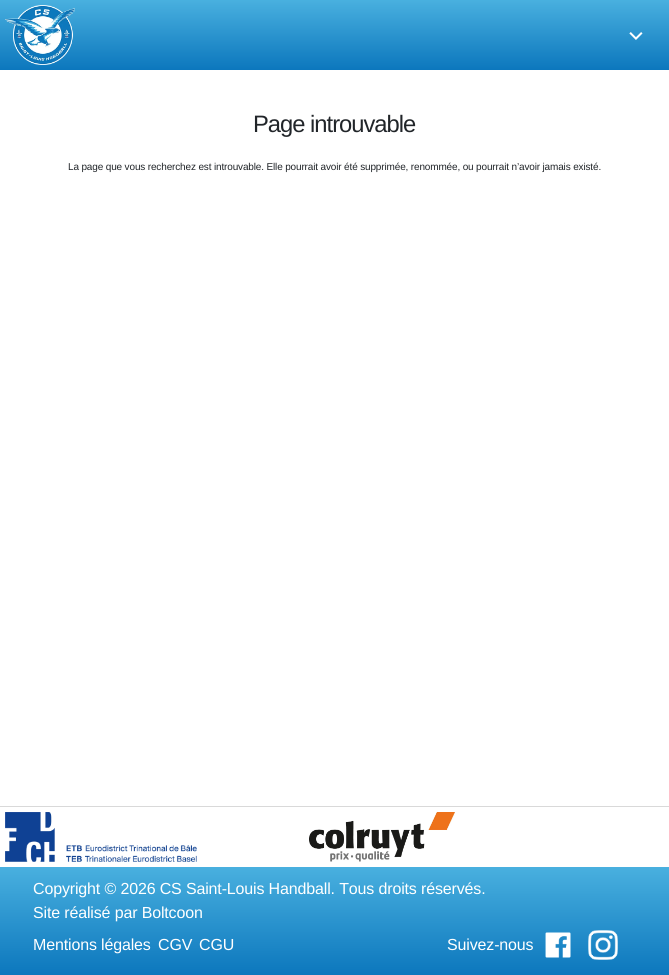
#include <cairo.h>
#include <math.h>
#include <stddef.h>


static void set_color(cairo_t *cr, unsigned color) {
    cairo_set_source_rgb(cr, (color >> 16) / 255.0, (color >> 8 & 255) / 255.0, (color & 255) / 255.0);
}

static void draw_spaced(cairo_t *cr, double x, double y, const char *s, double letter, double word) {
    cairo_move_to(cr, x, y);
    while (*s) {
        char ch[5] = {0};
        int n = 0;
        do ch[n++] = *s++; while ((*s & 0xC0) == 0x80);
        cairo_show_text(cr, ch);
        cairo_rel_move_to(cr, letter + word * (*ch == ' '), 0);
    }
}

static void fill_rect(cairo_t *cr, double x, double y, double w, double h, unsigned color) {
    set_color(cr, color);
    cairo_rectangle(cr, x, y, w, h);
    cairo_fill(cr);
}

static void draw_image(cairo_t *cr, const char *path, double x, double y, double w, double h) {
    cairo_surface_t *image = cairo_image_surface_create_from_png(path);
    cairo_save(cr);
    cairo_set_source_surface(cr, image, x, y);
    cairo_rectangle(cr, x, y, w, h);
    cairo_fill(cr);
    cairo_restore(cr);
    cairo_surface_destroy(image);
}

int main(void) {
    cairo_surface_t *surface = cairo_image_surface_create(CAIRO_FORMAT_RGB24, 669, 975);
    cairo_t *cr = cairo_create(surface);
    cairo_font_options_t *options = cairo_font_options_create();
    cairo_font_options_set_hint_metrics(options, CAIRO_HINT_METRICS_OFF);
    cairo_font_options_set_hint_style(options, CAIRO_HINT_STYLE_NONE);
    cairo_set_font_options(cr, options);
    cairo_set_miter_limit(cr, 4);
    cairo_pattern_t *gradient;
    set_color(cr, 0xFFFFFF);
    cairo_paint(cr);
    gradient = cairo_pattern_create_linear(335, 70, 335, 0);
    cairo_pattern_add_color_stop_rgba(gradient, 0, 0.047, 0.467, 0.741, 1);
    cairo_pattern_add_color_stop_rgba(gradient, 1, 0.286, 0.69, 0.875, 1);
    cairo_set_source(cr, gradient);
    cairo_pattern_destroy(gradient);
    cairo_rectangle(cr, 0, 0, 669, 70);
    cairo_fill(cr);
    draw_image(cr, "assets/img1.png", 5, 5, 70, 60);
    draw_image(cr, "assets/img2.png", 629, 32, 14, 8);
    cairo_select_font_face(cr, "Liberation Sans", CAIRO_FONT_SLANT_NORMAL, CAIRO_FONT_WEIGHT_NORMAL);
    cairo_set_font_size(cr, 23.75);
    set_color(cr, 0x212529);
    draw_spaced(cr, 253, 132, "Page introuvable", -1, 0);
    cairo_set_font_size(cr, 10);
    draw_spaced(cr, 68, 170, "La page que vous recherchez est introuvable. Elle pourrait avoir été supprimée, renommée, ou pourrait n’avoir jamais existé.", -0.15, 0);
    fill_rect(cr, 0, 806, 669, 1, 0xD9D9D9);
    draw_image(cr, "assets/img3.png", 5, 812, 192, 50);
    draw_image(cr, "assets/img4.png", 309, 812, 146, 50);
    gradient = cairo_pattern_create_linear(335, 975, 335, 867);
    cairo_pattern_add_color_stop_rgba(gradient, 0, 0.047, 0.467, 0.741, 1);
    cairo_pattern_add_color_stop_rgba(gradient, 1, 0.286, 0.69, 0.875, 1);
    cairo_set_source(cr, gradient);
    cairo_pattern_destroy(gradient);
    cairo_rectangle(cr, 0, 867, 669, 108);
    cairo_fill(cr);
    cairo_set_font_size(cr, 16);
    set_color(cr, 0xFFFFFF);
    draw_spaced(cr, 33, 894, "Copyright © 2026 CS Saint-Louis Handball. Tous droits réservés.", -0.15, 0);
    draw_spaced(cr, 33, 918, "Site réalisé par Boltcoon", -0.15, 0);
    draw_spaced(cr, 33, 950, "Mentions légales", -0.15, 0);
    draw_spaced(cr, 158, 950, "CGV", -0.15, 0);
    draw_spaced(cr, 199, 950, "CGU", -0.15, 0);
    draw_spaced(cr, 447, 950, "Suivez-nous", -0.15, 0);
    draw_image(cr, "assets/img5.png", 545, 932, 26, 26);
    draw_image(cr, "assets/img6.png", 588, 930, 30, 30);
    cairo_surface_write_to_png(surface, "output.png");
    cairo_font_options_destroy(options);
    cairo_destroy(cr);
    cairo_surface_destroy(surface);
    return 0;
}
